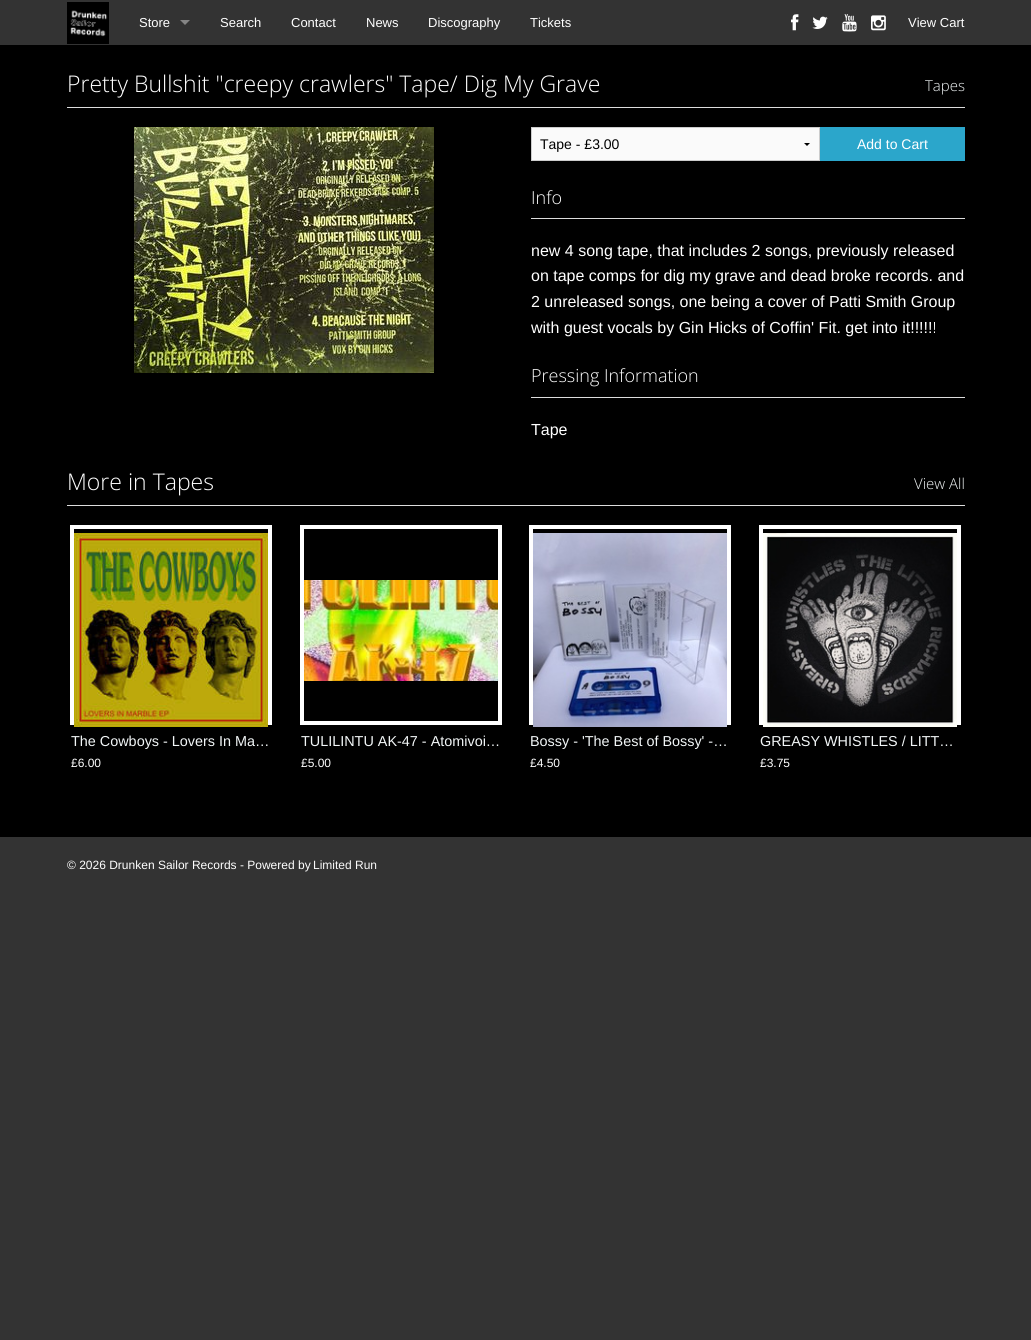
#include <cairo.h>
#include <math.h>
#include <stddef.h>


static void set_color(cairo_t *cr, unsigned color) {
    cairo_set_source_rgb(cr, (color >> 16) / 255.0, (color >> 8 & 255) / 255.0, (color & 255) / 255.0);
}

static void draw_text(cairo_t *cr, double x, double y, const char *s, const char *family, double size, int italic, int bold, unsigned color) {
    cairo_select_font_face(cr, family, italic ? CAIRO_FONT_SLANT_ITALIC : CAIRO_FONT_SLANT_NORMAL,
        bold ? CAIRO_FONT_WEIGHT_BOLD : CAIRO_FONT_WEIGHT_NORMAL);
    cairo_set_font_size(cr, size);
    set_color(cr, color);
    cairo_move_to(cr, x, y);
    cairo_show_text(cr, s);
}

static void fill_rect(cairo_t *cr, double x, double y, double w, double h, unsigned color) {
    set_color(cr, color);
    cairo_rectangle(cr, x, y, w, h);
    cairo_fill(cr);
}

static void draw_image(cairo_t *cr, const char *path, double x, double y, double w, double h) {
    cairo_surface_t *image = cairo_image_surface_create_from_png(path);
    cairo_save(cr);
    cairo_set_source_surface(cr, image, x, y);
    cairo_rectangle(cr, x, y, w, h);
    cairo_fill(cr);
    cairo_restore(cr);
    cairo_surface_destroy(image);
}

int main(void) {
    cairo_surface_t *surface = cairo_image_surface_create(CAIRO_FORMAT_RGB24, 1031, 1340);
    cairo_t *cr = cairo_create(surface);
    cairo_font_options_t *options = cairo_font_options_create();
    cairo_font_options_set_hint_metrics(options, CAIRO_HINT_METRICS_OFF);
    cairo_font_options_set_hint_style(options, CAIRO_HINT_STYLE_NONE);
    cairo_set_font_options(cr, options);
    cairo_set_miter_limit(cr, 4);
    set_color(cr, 0x333333);
    cairo_paint(cr);
    draw_image(cr, "assets/img1.png", 67, 2, 42, 42);
    draw_text(cr, 139, 27, "Store", "Liberation Sans", 13, 0, 0, 0xFFFFFF);
    set_color(cr, 0x858585);
    cairo_new_path(cr);
    cairo_move_to(cr, 180, 20);
    cairo_line_to(cr, 190, 20);
    cairo_line_to(cr, 185, 25);
    cairo_close_path(cr);
    cairo_fill(cr);
    draw_text(cr, 220, 27, "Search", "Liberation Sans", 13, 0, 0, 0xFFFFFF);
    draw_text(cr, 291, 27, "Contact", "Liberation Sans", 13, 0, 0, 0xFFFFFF);
    draw_text(cr, 366, 27, "News", "Liberation Sans", 13, 0, 0, 0xFFFFFF);
    draw_text(cr, 428, 27, "Discography", "Liberation Sans", 13, 0, 0, 0xFFFFFF);
    draw_text(cr, 530, 27, "Tickets", "Liberation Sans", 13, 0, 0, 0xFFFFFF);
    draw_image(cr, "assets/img2.png", 791, 14, 8, 17);
    draw_image(cr, "assets/img3.png", 812, 16, 16, 13);
    draw_image(cr, "assets/img4.png", 842, 14, 15, 18);
    draw_image(cr, "assets/img5.png", 871, 15, 15, 16);
    draw_text(cr, 908, 27, "View Cart", "Liberation Sans", 13, 0, 0, 0xFFFFFF);
    fill_rect(cr, 0, 45, 1031, 792, 0x000000);
    draw_text(cr, 67, 92, "Pretty Bullshit \"creepy crawlers\" Tape/ Dig My Grave", "Open Sans Light", 23, 0, 0, 0xFFFFFF);
    draw_text(cr, 925, 91, "Tapes", "Open Sans Light", 15, 0, 0, 0xF2F6F7);
    fill_rect(cr, 67, 107, 898, 1, 0xDDDDDD);
    draw_image(cr, "assets/img6.png", 134, 127, 300, 246);
    fill_rect(cr, 532, 128, 287, 32, 0xFAFAFA);
    set_color(cr, 0x000000);
    cairo_new_path(cr);
    cairo_move_to(cr, 810, 143);
    cairo_line_to(cr, 807, 146);
    cairo_line_to(cr, 804, 143);
    cairo_close_path(cr);
    cairo_fill(cr);
    cairo_rectangle(cr, 531.5, 127.5, 288, 33);
    set_color(cr, 0xCCCCCC);
    cairo_set_line_width(cr, 1);
    cairo_stroke(cr);
    draw_text(cr, 540, 149, "Tape - £3.00", "Liberation Sans", 14, 0, 0, 0x000000);
    fill_rect(cr, 820, 127, 145, 34, 0x2BA6CB);
    draw_text(cr, 857, 149, "Add to Cart", "Liberation Sans", 14, 0, 0, 0xFFFFFF);
    draw_text(cr, 531, 204, "Info", "Open Sans Light", 18, 0, 0, 0xFFFFFF);
    fill_rect(cr, 531, 218, 434, 1, 0xDDDDDD);
    draw_text(cr, 531, 256, "new 4 song tape, that includes 2 songs, previously released", "Liberation Sans", 16, 0, 0, 0xFFFFFF);
    draw_text(cr, 531, 281, "on tape comps for dig my grave and dead broke records. and", "Liberation Sans", 16, 0, 0, 0xFFFFFF);
    draw_text(cr, 531, 307, "2 unreleased songs, one being a cover of Patti Smith Group", "Liberation Sans", 16, 0, 0, 0xFFFFFF);
    draw_text(cr, 531, 333, "with guest vocals by Gin Hicks of Coffin' Fit. get into it!!!!!!", "Liberation Sans", 16, 0, 0, 0xFFFFFF);
    draw_text(cr, 531, 382, "Pressing Information", "Open Sans Light", 18, 0, 0, 0xFFFFFF);
    fill_rect(cr, 531, 397, 434, 1, 0xDDDDDD);
    draw_text(cr, 531, 435, "Tape", "Liberation Sans", 16, 0, 0, 0xFFFFFF);
    draw_text(cr, 67, 490, "More in Tapes", "Open Sans Light", 23, 0, 0, 0xFFFFFF);
    draw_text(cr, 914, 489, "View All", "Open Sans Light", 15, 0, 0, 0xF2F6F7);
    fill_rect(cr, 67, 505, 898, 1, 0xDDDDDD);
    cairo_rectangle(cr, 72, 527, 198, 196);
    set_color(cr, 0xFFFFFF);
    cairo_set_line_width(cr, 4);
    cairo_stroke(cr);
    draw_image(cr, "assets/img7.png", 74, 533, 194, 194);
    draw_text(cr, 71, 746, "The Cowboys - Lovers In Ma…", "Liberation Sans", 14.4, 0, 0, 0xF2F6F7);
    draw_text(cr, 71, 767, "£6.00", "Liberation Sans", 12, 0, 0, 0xFFFFFF);
    cairo_rectangle(cr, 302, 527, 198, 196);
    cairo_stroke(cr);
    draw_image(cr, "assets/img8.png", 304, 580, 194, 101);
    draw_text(cr, 301, 746, "TULILINTU AK-47 - Atomivoi…", "Liberation Sans", 14.4, 0, 0, 0xF2F6F7);
    draw_text(cr, 301, 767, "£5.00", "Liberation Sans", 12, 0, 0, 0xFFFFFF);
    cairo_rectangle(cr, 531, 527, 198, 196);
    cairo_stroke(cr);
    draw_image(cr, "assets/img9.png", 533, 533, 194, 194);
    draw_text(cr, 530, 746, "Bossy - 'The Best of Bossy' -…", "Liberation Sans", 14.4, 0, 0, 0xF2F6F7);
    draw_text(cr, 530, 767, "£4.50", "Liberation Sans", 12, 0, 0, 0xFFFFFF);
    cairo_rectangle(cr, 761, 527, 198, 196);
    cairo_stroke(cr);
    draw_image(cr, "assets/img10.png", 763, 533, 194, 194);
    draw_text(cr, 760, 746, "GREASY WHISTLES / LITT…", "Liberation Sans", 14.4, 0, 0, 0xF2F6F7);
    draw_text(cr, 760, 767, "£3.75", "Liberation Sans", 12, 0, 0, 0xFFFFFF);
    draw_text(cr, 67, 869, "© 2026 Drunken Sailor Records - Powered by", "Liberation Sans", 12, 0, 0, 0xFFFFFF);
    draw_text(cr, 313, 869, "Limited Run", "Liberation Sans", 12, 0, 0, 0xF9F9F9);
    cairo_surface_write_to_png(surface, "output.png");
    cairo_font_options_destroy(options);
    cairo_destroy(cr);
    cairo_surface_destroy(surface);
    return 0;
}
